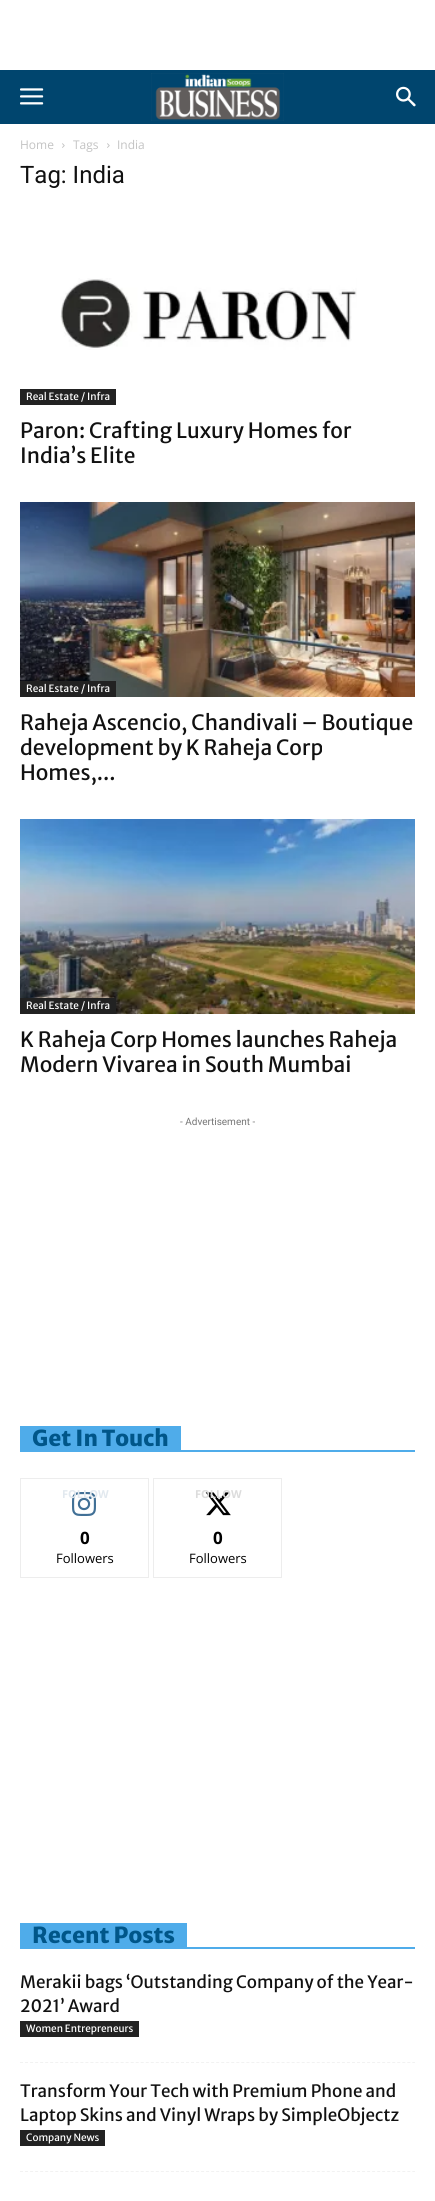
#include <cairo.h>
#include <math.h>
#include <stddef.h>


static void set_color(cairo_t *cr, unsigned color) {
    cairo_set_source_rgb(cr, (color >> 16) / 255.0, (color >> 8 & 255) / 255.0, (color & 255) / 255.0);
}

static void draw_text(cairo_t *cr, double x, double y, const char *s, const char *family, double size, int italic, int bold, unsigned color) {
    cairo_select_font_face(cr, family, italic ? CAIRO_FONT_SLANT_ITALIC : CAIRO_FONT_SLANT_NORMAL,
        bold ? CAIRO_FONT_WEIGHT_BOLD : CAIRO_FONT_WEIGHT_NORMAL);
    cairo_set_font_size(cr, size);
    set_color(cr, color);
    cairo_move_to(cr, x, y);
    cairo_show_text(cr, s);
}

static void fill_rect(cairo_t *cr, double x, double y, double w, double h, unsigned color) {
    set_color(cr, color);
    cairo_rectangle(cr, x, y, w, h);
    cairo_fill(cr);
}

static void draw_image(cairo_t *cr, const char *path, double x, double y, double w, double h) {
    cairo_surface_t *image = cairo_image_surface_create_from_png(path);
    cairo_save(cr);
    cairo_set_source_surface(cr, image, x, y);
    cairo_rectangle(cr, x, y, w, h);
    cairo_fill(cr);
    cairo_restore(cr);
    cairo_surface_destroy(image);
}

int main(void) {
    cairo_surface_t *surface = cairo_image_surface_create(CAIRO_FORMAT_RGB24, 435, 2201);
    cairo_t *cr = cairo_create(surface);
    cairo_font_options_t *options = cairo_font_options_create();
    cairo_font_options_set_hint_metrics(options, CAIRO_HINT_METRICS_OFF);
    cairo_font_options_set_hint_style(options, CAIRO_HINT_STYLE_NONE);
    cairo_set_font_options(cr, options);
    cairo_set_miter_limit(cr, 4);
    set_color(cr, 0xFFFFFF);
    cairo_paint(cr);
    fill_rect(cr, 0, 70, 435, 54, 0x00456E);
    draw_image(cr, "assets/img1.png", 20, 88, 24, 17);
    draw_image(cr, "assets/img2.png", 151, 73, 133, 48);
    draw_image(cr, "assets/img3.png", 396, 86, 20, 21);
    draw_text(cr, 20, 149, "Home", "Open Sans", 12, 0, 0, 0xC3C3C3);
    draw_image(cr, "assets/img4.png", 62, 143, 3, 5);
    draw_text(cr, 73, 149, "Tags", "Open Sans", 12, 0, 0, 0xC3C3C3);
    draw_image(cr, "assets/img4.png", 107, 143, 3, 5);
    draw_text(cr, 117, 149, "India", "Open Sans", 12, 0, 0, 0xC3C3C3);
    draw_text(cr, 20, 183, "Tag: India", "Roboto", 24, 0, 0, 0x111111);
    draw_image(cr, "assets/img5.png", 60, 278, 297, 72);
    fill_rect(cr, 20, 389, 96, 16, 0x222222);
    draw_text(cr, 26, 400, "Real Estate / Infra", "Merriweather Sans", 10, 0, 0, 0xFFFFFF);
    draw_text(cr, 20, 438, "Paron: Crafting Luxury Homes for", "Merriweather Sans", 21, 0, 0, 0x111111);
    draw_text(cr, 20, 463, "India’s Elite", "Merriweather Sans", 21, 0, 0, 0x111111);
    draw_image(cr, "assets/img6.png", 20, 502, 395, 195);
    fill_rect(cr, 20, 681, 96, 16, 0x222222);
    draw_text(cr, 26, 692, "Real Estate / Infra", "Merriweather Sans", 10, 0, 0, 0xFFFFFF);
    draw_text(cr, 20, 730, "Raheja Ascencio, Chandivali – Boutique", "Merriweather Sans", 21, 0, 0, 0x111111);
    draw_text(cr, 20, 755, "development by K Raheja Corp", "Merriweather Sans", 21, 0, 0, 0x111111);
    draw_text(cr, 20, 780, "Homes,...", "Merriweather Sans", 21, 0, 0, 0x111111);
    draw_image(cr, "assets/img7.png", 20, 819, 395, 195);
    fill_rect(cr, 20, 998, 96, 16, 0x222222);
    draw_text(cr, 26, 1009, "Real Estate / Infra", "Merriweather Sans", 10, 0, 0, 0xFFFFFF);
    draw_text(cr, 20, 1047, "K Raheja Corp Homes launches Raheja", "Merriweather Sans", 21, 0, 0, 0x111111);
    draw_text(cr, 20, 1072, "Modern Vivarea in South Mumbai", "Merriweather Sans", 21, 0, 0, 0x111111);
    draw_text(cr, 180, 1125, "- Advertisement -", "Roboto", 10, 0, 0, 0x767676);
    fill_rect(cr, 20, 1450, 395, 2, 0x4FACEA);
    fill_rect(cr, 20, 1426, 161, 24, 0x4FACEA);
    draw_text(cr, 32, 1446, "Get In Touch", "Merriweather Sans ExtraBold", 22, 0, 0, 0x005689);
    cairo_rectangle(cr, 20.5, 1478.5, 128, 99);
    set_color(cr, 0xEDEDED);
    cairo_set_line_width(cr, 1);
    cairo_stroke(cr);
    draw_image(cr, "assets/img8.png", 72, 1492, 24, 24);
    draw_text(cr, 62, 1498, "FOLLOW", "Open Sans", 11, 0, 1, 0xE2E9EF);
    draw_text(cr, 80, 1544, "0", "Open Sans", 17, 0, 1, 0x000000);
    draw_text(cr, 56, 1563, "Followers", "Open Sans", 13, 0, 0, 0x000000);
    cairo_rectangle(cr, 153.5, 1478.5, 128, 99);
    set_color(cr, 0xEDEDED);
    cairo_stroke(cr);
    draw_image(cr, "assets/img9.png", 205, 1492, 26, 24);
    draw_text(cr, 195, 1498, "FOLLOW", "Open Sans", 11, 0, 1, 0xDCDCDC);
    draw_text(cr, 213, 1544, "0", "Open Sans", 17, 0, 1, 0x000000);
    draw_text(cr, 189, 1563, "Followers", "Open Sans", 13, 0, 0, 0x000000);
    fill_rect(cr, 20, 1947, 395, 2, 0x4FACEA);
    fill_rect(cr, 20, 1923, 167, 24, 0x4FACEA);
    draw_text(cr, 32, 1943, "Recent Posts", "Merriweather Sans ExtraBold", 22, 0, 0, 0x005689);
    cairo_new_path(cr);
    cairo_move_to(cr, 20, 2062.5);
    cairo_line_to(cr, 415, 2062.5);
    set_color(cr, 0xF2F2F2);
    cairo_set_dash(cr, (double[]){3, 2.03}, 2, 0);
    cairo_stroke(cr);
    draw_text(cr, 20, 1988, "Merakii bags ‘Outstanding Company of the Year-", "Merriweather Sans", 17, 0, 0, 0x111111);
    draw_text(cr, 20, 2012, "2021’ Award", "Merriweather Sans", 17, 0, 0, 0x111111);
    fill_rect(cr, 20, 2021, 119, 16, 0x222222);
    draw_text(cr, 26, 2032, "Women Entrepreneurs", "Merriweather Sans", 10, 0, 0, 0xFFFFFF);
    cairo_new_path(cr);
    cairo_move_to(cr, 20, 2171.5);
    cairo_line_to(cr, 415, 2171.5);
    set_color(cr, 0xF2F2F2);
    cairo_stroke(cr);
    draw_text(cr, 20, 2097, "Transform Your Tech with Premium Phone and", "Merriweather Sans", 17, 0, 0, 0x111111);
    draw_text(cr, 20, 2121, "Laptop Skins and Vinyl Wraps by SimpleObjectz", "Merriweather Sans", 17, 0, 0, 0x111111);
    fill_rect(cr, 20, 2130, 85, 16, 0x222222);
    draw_text(cr, 26, 2141, "Company News", "Merriweather Sans", 10, 0, 0, 0xFFFFFF);
    cairo_surface_write_to_png(surface, "output.png");
    cairo_font_options_destroy(options);
    cairo_destroy(cr);
    cairo_surface_destroy(surface);
    return 0;
}
